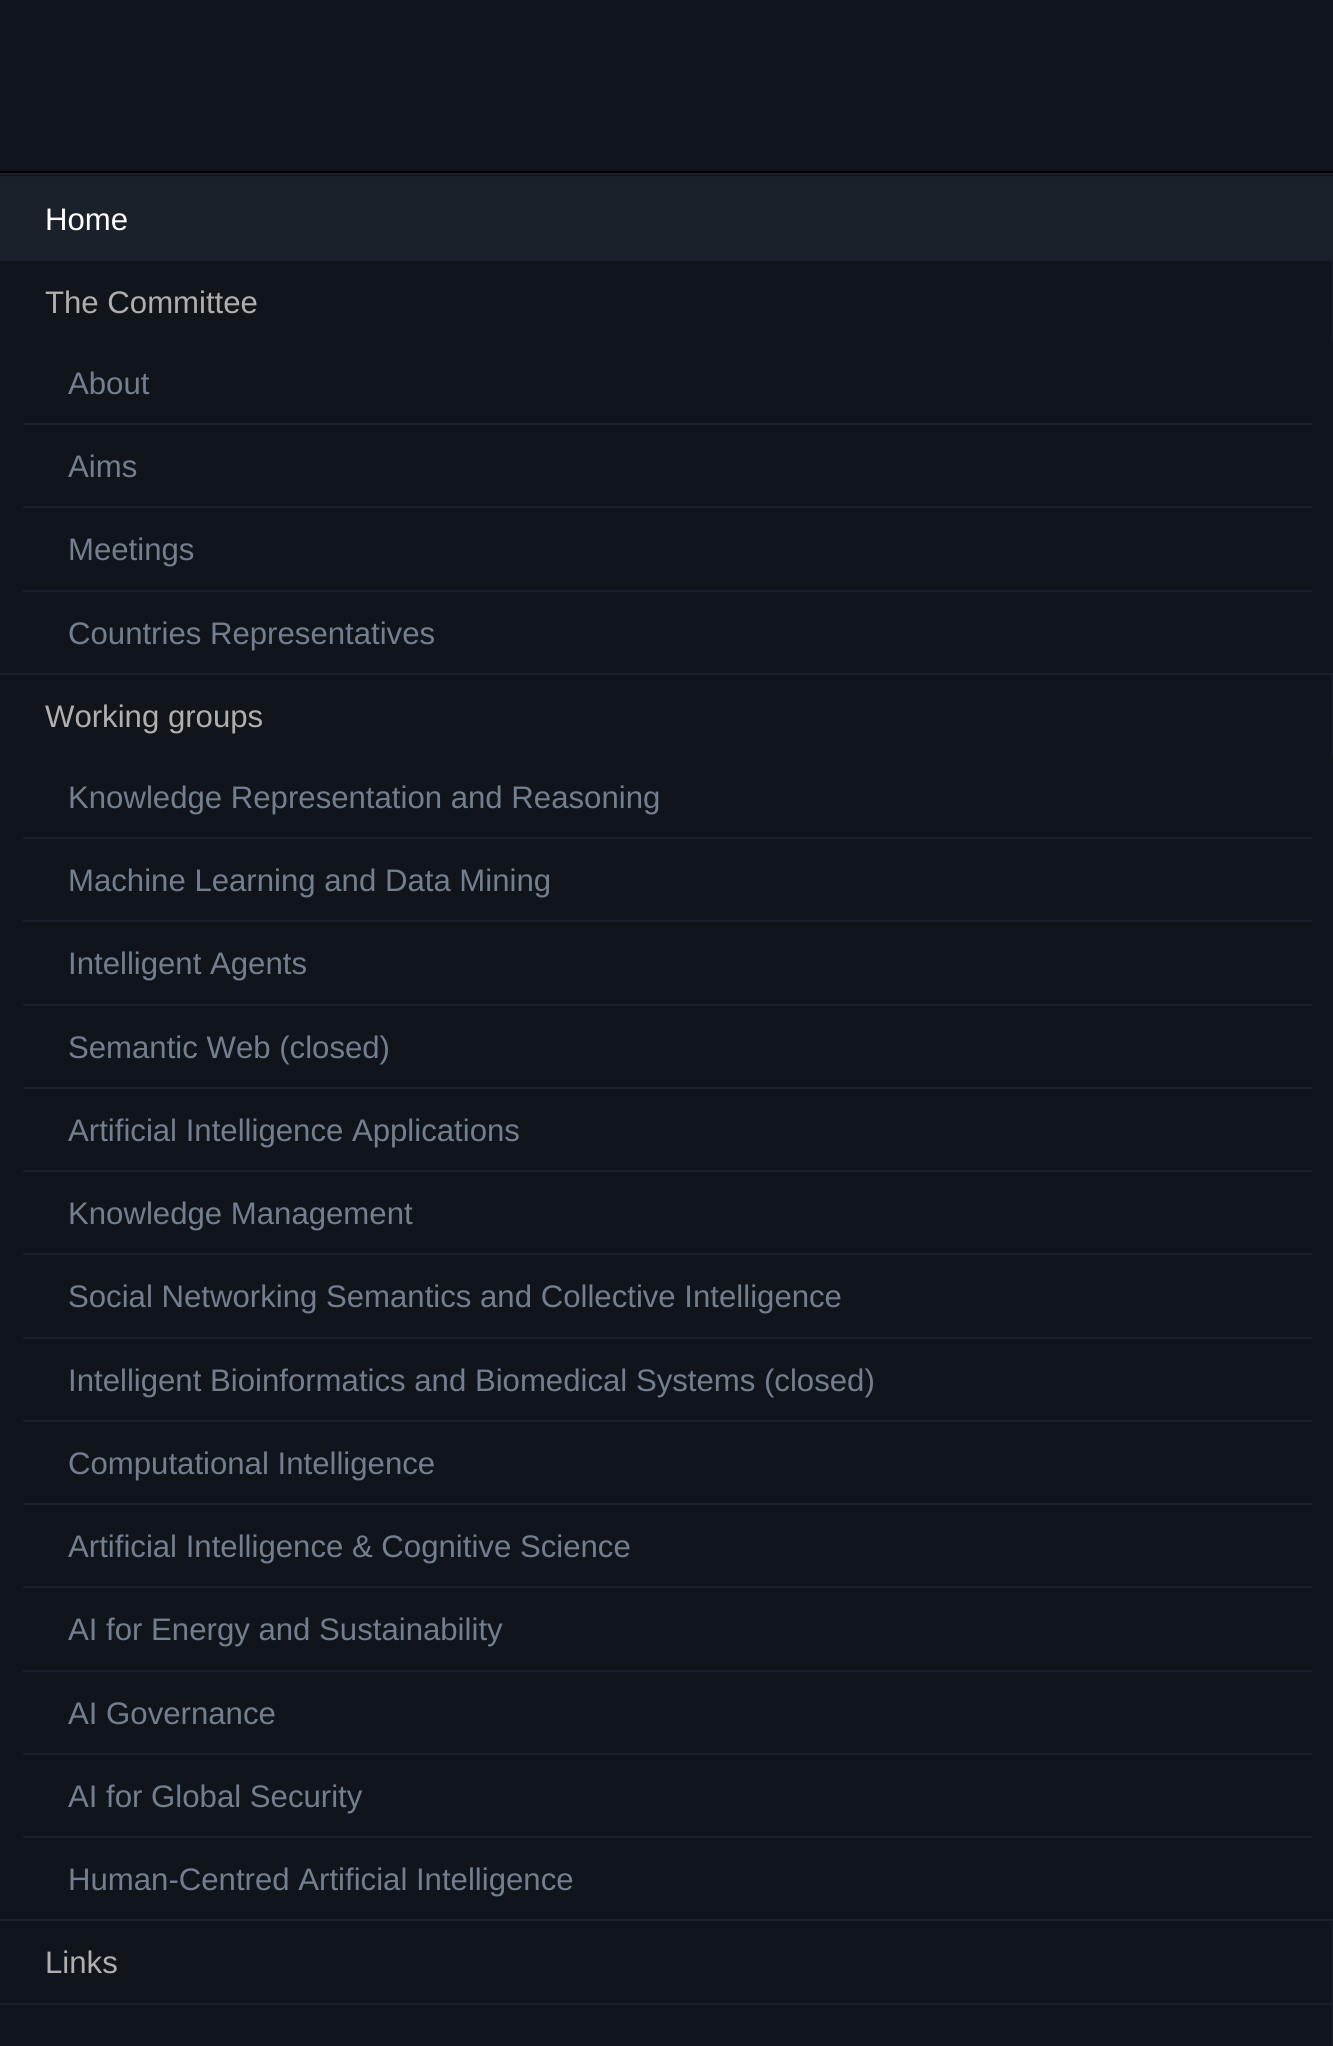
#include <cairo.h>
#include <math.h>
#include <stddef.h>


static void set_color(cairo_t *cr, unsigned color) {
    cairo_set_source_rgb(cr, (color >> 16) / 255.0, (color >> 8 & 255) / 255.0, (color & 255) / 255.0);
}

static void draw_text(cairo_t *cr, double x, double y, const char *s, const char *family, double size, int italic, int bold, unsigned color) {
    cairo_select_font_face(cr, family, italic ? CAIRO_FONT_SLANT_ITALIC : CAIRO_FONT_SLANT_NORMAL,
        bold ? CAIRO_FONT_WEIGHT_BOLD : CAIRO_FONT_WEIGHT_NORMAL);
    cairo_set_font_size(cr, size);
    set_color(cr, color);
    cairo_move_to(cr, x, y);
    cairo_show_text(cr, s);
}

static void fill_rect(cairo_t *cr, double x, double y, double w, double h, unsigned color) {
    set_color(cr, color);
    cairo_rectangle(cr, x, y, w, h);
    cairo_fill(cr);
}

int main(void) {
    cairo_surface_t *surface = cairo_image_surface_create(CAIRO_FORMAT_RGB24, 1333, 2046);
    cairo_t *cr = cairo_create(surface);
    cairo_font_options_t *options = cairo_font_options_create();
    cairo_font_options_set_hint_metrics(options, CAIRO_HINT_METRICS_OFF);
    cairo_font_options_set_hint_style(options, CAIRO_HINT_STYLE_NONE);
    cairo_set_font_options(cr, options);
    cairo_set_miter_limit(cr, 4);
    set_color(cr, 0x10151C);
    cairo_paint(cr);
    fill_rect(cr, 0, 171, 1333, 2, 0x000000);
    fill_rect(cr, 0, 173, 1333, 2, 0x1B212A);
    fill_rect(cr, 0, 176, 1333, 2, 0x192029);
    fill_rect(cr, 0, 178, 1333, 81, 0x1B212A);
    draw_text(cr, 45, 230, "Home", "Liberation Sans", 31.15, 0, 0, 0xFFFFFF);
    fill_rect(cr, 0, 259, 1333, 2, 0x192029);
    fill_rect(cr, 1332, 261, 1, 81, 0x1B212A);
    draw_text(cr, 45, 313, "The Committee", "Liberation Sans", 31.15, 0, 0, 0xAFAFAF);
    draw_text(cr, 68, 394, "About", "Liberation Sans", 31.15, 0, 0, 0x737E8E);
    fill_rect(cr, 23, 423, 1289, 2, 0x192029);
    draw_text(cr, 68, 477, "Aims", "Liberation Sans", 31.15, 0, 0, 0x737E8E);
    fill_rect(cr, 23, 506, 1289, 2, 0x192029);
    draw_text(cr, 68, 560, "Meetings", "Liberation Sans", 31.15, 0, 0, 0x737E8E);
    fill_rect(cr, 23, 590, 1289, 2, 0x192029);
    draw_text(cr, 68, 644, "Countries Representatives", "Liberation Sans", 31.15, 0, 0, 0x737E8E);
    fill_rect(cr, 0, 673, 1333, 2, 0x192029);
    fill_rect(cr, 1332, 675, 1, 81, 0x1B212A);
    draw_text(cr, 45, 727, "Working groups", "Liberation Sans", 31.15, 0, 0, 0xAFAFAF);
    draw_text(cr, 68, 808, "Knowledge Representation and Reasoning", "Liberation Sans", 31.15, 0, 0, 0x737E8E);
    fill_rect(cr, 23, 837, 1289, 2, 0x192029);
    draw_text(cr, 68, 891, "Machine Learning and Data Mining", "Liberation Sans", 31.15, 0, 0, 0x737E8E);
    fill_rect(cr, 23, 920, 1289, 2, 0x192029);
    draw_text(cr, 68, 974, "Intelligent Agents", "Liberation Sans", 31.15, 0, 0, 0x737E8E);
    fill_rect(cr, 23, 1004, 1289, 2, 0x192029);
    draw_text(cr, 68, 1058, "Semantic Web (closed)", "Liberation Sans", 31.15, 0, 0, 0x737E8E);
    fill_rect(cr, 23, 1087, 1289, 2, 0x192029);
    draw_text(cr, 68, 1141, "Artificial Intelligence Applications", "Liberation Sans", 31.15, 0, 0, 0x737E8E);
    fill_rect(cr, 23, 1170, 1289, 2, 0x192029);
    draw_text(cr, 68, 1224, "Knowledge Management", "Liberation Sans", 31.15, 0, 0, 0x737E8E);
    fill_rect(cr, 23, 1253, 1289, 2, 0x192029);
    draw_text(cr, 68, 1307, "Social Networking Semantics and Collective Intelligence", "Liberation Sans", 31.15, 0, 0, 0x737E8E);
    fill_rect(cr, 23, 1337, 1289, 2, 0x192029);
    draw_text(cr, 68, 1391, "Intelligent Bioinformatics and Biomedical Systems (closed)", "Liberation Sans", 31.15, 0, 0, 0x737E8E);
    fill_rect(cr, 23, 1420, 1289, 2, 0x192029);
    draw_text(cr, 68, 1474, "Computational Intelligence", "Liberation Sans", 31.15, 0, 0, 0x737E8E);
    fill_rect(cr, 23, 1503, 1289, 2, 0x192029);
    draw_text(cr, 68, 1557, "Artificial Intelligence & Cognitive Science", "Liberation Sans", 31.15, 0, 0, 0x737E8E);
    fill_rect(cr, 23, 1586, 1289, 2, 0x192029);
    draw_text(cr, 68, 1640, "AI for Energy and Sustainability", "Liberation Sans", 31.15, 0, 0, 0x737E8E);
    fill_rect(cr, 23, 1670, 1289, 2, 0x192029);
    draw_text(cr, 68, 1724, "AI Governance", "Liberation Sans", 31.15, 0, 0, 0x737E8E);
    fill_rect(cr, 23, 1753, 1289, 2, 0x192029);
    draw_text(cr, 68, 1807, "AI for Global Security", "Liberation Sans", 31.15, 0, 0, 0x737E8E);
    fill_rect(cr, 23, 1836, 1289, 2, 0x192029);
    draw_text(cr, 68, 1890, "Human-Centred Artificial Intelligence", "Liberation Sans", 31.15, 0, 0, 0x737E8E);
    fill_rect(cr, 0, 1919, 1333, 2, 0x192029);
    fill_rect(cr, 1332, 1922, 1, 81, 0x1B212A);
    draw_text(cr, 45, 1973, "Links", "Liberation Sans", 31.15, 0, 0, 0xAFAFAF);
    fill_rect(cr, 0, 2003, 1333, 2, 0x192029);
    fill_rect(cr, 1332, 2005, 1, 41, 0x1B212A);
    cairo_surface_write_to_png(surface, "output.png");
    cairo_font_options_destroy(options);
    cairo_destroy(cr);
    cairo_surface_destroy(surface);
    return 0;
}
